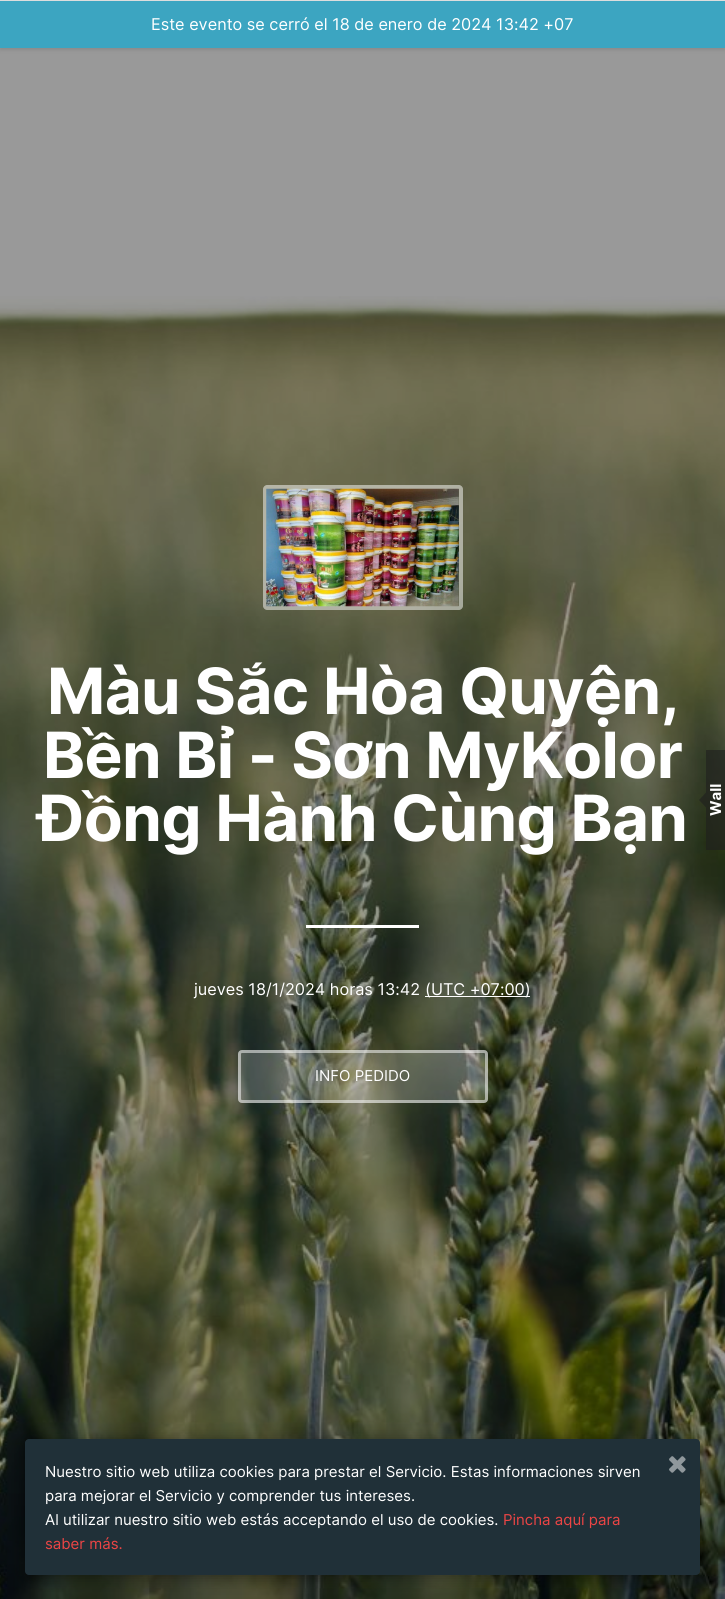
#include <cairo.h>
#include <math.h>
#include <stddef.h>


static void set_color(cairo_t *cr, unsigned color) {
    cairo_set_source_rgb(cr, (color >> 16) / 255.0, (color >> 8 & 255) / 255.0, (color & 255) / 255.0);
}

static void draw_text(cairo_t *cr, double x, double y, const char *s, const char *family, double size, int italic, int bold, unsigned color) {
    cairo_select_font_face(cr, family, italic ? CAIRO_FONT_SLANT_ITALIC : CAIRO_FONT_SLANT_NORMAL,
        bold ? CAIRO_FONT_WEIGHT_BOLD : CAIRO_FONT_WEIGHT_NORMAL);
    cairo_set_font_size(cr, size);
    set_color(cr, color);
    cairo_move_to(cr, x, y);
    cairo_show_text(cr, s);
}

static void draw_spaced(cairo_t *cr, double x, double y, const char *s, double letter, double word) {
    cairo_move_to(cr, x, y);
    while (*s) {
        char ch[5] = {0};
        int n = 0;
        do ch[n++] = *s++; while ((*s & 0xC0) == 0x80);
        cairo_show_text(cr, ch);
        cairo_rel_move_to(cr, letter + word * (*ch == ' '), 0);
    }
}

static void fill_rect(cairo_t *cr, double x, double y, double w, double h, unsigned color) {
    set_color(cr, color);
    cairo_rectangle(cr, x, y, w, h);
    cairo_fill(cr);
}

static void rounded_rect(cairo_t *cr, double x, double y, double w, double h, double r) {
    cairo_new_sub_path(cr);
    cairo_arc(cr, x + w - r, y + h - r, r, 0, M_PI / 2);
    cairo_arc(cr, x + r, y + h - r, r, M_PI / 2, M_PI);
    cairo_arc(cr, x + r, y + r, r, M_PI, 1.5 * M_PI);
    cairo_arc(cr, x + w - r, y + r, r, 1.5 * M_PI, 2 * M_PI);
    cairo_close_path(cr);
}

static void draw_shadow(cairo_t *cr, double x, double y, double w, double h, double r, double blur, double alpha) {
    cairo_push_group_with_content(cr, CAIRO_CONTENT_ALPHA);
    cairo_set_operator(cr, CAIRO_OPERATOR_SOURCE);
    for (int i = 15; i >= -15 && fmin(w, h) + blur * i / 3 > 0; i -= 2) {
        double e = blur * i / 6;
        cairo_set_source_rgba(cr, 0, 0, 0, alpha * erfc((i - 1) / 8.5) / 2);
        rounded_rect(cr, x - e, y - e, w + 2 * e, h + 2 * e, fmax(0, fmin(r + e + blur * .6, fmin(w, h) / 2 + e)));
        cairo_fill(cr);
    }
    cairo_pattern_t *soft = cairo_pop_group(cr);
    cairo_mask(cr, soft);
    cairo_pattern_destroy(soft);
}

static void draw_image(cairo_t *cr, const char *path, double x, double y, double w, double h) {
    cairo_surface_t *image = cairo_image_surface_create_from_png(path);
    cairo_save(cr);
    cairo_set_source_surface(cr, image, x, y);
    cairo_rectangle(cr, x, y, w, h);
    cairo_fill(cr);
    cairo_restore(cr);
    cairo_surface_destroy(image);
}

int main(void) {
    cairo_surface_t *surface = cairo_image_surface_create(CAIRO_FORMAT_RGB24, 725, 1599);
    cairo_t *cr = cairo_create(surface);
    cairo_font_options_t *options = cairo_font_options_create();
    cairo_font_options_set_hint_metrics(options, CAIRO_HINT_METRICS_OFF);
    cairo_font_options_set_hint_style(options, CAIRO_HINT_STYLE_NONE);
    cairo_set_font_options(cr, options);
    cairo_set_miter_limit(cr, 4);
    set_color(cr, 0x999999);
    cairo_paint(cr);
    cairo_save(cr);
    cairo_set_fill_rule(cr, CAIRO_FILL_RULE_EVEN_ODD);
    cairo_new_path(cr);
    cairo_move_to(cr, 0, 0);
    cairo_line_to(cr, 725, 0);
    cairo_line_to(cr, 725, 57);
    cairo_line_to(cr, 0, 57);
    cairo_close_path(cr);
    cairo_move_to(cr, 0, 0);
    cairo_line_to(cr, 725, 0);
    cairo_line_to(cr, 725, 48);
    cairo_line_to(cr, 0, 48);
    cairo_close_path(cr);
    cairo_clip(cr);
    set_color(cr, 0x000000);
    draw_shadow(cr, 0, 3, 725, 47, 0, 2, 0.1);
    cairo_restore(cr);
    fill_rect(cr, 0, 0, 725, 1, 0xDDDDDD);
    cairo_set_source_rgba(cr, 0.196, 0.655, 0.776, 0.9);
    cairo_rectangle(cr, 0, 1, 725, 47);
    cairo_fill(cr);
    draw_text(cr, 151, 30, "Este evento se cerró el 18 de enero de 2024 13:42 +07", "Inter", 16.25, 0, 0, 0xFFFFFF);
    draw_image(cr, "assets/img1.png", 0, 296, 725, 1303);
    cairo_set_source_rgba(cr, 1, 1, 1, 0.5);
    cairo_set_fill_rule(cr, CAIRO_FILL_RULE_EVEN_ODD);
    cairo_new_path(cr);
    cairo_move_to(cr, 267, 485);
    cairo_curve_to(cr, 265, 485, 263, 487, 263, 489);
    cairo_line_to(cr, 263, 606);
    cairo_curve_to(cr, 263, 608, 265, 610, 267, 610);
    cairo_line_to(cr, 459, 610);
    cairo_curve_to(cr, 461, 610, 463, 608, 463, 606);
    cairo_line_to(cr, 463, 489);
    cairo_curve_to(cr, 463, 487, 461, 485, 459, 485);
    cairo_close_path(cr);
    cairo_move_to(cr, 267, 489);
    cairo_line_to(cr, 267, 606);
    cairo_line_to(cr, 459, 606);
    cairo_line_to(cr, 459, 489);
    cairo_close_path(cr);
    cairo_fill(cr);
    draw_image(cr, "assets/img2.png", 266, 488, 193, 119);
    cairo_select_font_face(cr, "Inter", CAIRO_FONT_SLANT_NORMAL, CAIRO_FONT_WEIGHT_BOLD);
    cairo_set_font_size(cr, 63.75);
    set_color(cr, 0xFFFFFF);
    draw_spaced(cr, 47, 714, "Màu Sắc Hòa Quyện,", -0.6, 0);
    draw_spaced(cr, 43, 778, "Bền Bỉ - Sơn MyKolor", -0.6, 0);
    draw_spaced(cr, 38, 841, "Đồng Hành Cùng Bạn", -0.6, 0);
    fill_rect(cr, 306, 925, 113, 3, 0xFFFFFF);
    draw_text(cr, 194, 995, "jueves 18/1/2024 horas 13:42", "Inter", 16.25, 0, 0, 0xFFFFFF);
    fill_rect(cr, 425, 996, 105, 1, 0xFFFFFF);
    draw_text(cr, 425, 995, "(UTC +07:00)", "Inter", 16.25, 0, 0, 0xFFFFFF);
    cairo_set_source_rgba(cr, 1, 1, 1, 0.2);
    rounded_rect(cr, 238, 1050, 250, 53, 4);
    cairo_fill(cr);
    rounded_rect(cr, 239.5, 1051.5, 247, 50, 2.5);
    cairo_set_source_rgba(cr, 1, 1, 1, 0.5);
    cairo_set_line_width(cr, 3);
    cairo_stroke(cr);
    draw_text(cr, 315, 1081, "INFO PEDIDO", "Inter", 15, 0, 0, 0xFFFFFF);
    cairo_set_source_rgba(cr, 0.122, 0.122, 0.122, 0.6);
    cairo_rectangle(cr, 706, 750, 19, 100);
    cairo_fill(cr);
    cairo_set_fill_rule(cr, CAIRO_FILL_RULE_WINDING);
    cairo_new_path(cr);
    cairo_move_to(cr, 706, 792.5);
    cairo_line_to(cr, 706, 807.5);
    cairo_line_to(cr, 699, 800);
    cairo_close_path(cr);
    cairo_fill(cr);
    cairo_save(cr);
    cairo_translate(cr, 721, 816);
    cairo_rotate(cr, -90 * M_PI / 180);
    draw_text(cr, 0, 0, "Wall", "Inter", 15, 0, 1, 0xFFFFFF);
    cairo_restore(cr);
    set_color(cr, 0x000000);
    draw_shadow(cr, 25, 1441, 675, 137, 4, 7.5, 0.4);
    set_color(cr, 0x203038);
    rounded_rect(cr, 25, 1439, 675, 136, 4);
    cairo_fill(cr);
    draw_text(cr, 45, 1477, "Nuestro sitio web utiliza cookies para prestar el Servicio. Estas informaciones sirven", "Inter", 15, 0, 0, 0xFFFFFF);
    draw_text(cr, 45, 1501, "para mejorar el Servicio y comprender tus intereses.", "Inter", 15, 0, 0, 0xFFFFFF);
    draw_text(cr, 45, 1525, "Al utilizar nuestro sitio web estás acceptando el uso de cookies.", "Inter", 15, 0, 0, 0xFFFFFF);
    draw_text(cr, 503, 1525, "Pincha aquí para", "Inter", 15, 0, 0, 0xEC4545);
    draw_text(cr, 45, 1549, "saber más.", "Inter", 15, 0, 0, 0xEC4545);
    draw_image(cr, "assets/img3.png", 669, 1456, 17, 17);
    cairo_surface_write_to_png(surface, "output.png");
    cairo_font_options_destroy(options);
    cairo_destroy(cr);
    cairo_surface_destroy(surface);
    return 0;
}
